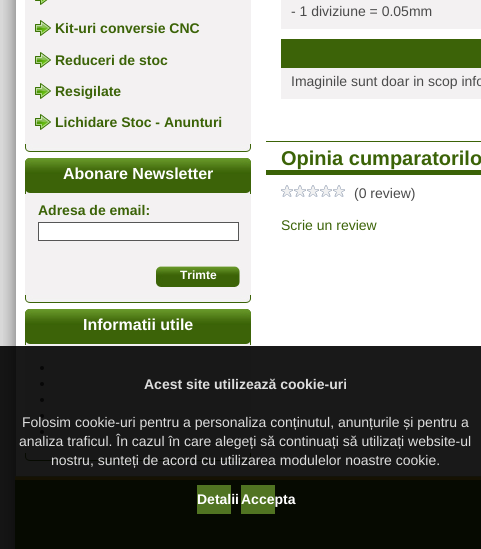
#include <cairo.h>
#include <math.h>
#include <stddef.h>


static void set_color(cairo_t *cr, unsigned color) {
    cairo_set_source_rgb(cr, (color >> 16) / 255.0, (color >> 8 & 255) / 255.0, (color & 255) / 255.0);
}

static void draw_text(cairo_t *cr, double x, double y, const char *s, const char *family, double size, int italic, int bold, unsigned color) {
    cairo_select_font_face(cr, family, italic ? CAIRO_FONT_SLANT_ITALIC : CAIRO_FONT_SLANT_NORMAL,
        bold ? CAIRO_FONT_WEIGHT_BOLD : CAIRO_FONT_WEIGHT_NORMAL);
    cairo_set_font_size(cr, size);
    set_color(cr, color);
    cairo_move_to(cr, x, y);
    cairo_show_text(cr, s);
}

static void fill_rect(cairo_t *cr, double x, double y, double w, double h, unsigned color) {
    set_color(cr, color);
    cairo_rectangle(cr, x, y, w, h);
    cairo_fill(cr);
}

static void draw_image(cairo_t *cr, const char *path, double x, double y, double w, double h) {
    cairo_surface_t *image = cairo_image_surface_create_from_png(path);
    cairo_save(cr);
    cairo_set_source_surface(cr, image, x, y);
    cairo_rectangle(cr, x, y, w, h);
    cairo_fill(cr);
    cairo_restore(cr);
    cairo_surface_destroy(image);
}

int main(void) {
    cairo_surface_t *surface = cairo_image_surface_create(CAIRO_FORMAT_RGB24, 481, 549);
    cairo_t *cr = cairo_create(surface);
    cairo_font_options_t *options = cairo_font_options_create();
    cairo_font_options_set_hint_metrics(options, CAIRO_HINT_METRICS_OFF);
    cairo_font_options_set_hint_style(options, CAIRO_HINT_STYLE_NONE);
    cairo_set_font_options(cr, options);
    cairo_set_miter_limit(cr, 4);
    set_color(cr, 0xD8D8D8);
    cairo_paint(cr);
    draw_image(cr, "assets/img1.png", 3, 0, 478, 549);
    fill_rect(cr, 25, 0, 226, 144, 0xF3F1F2);
    draw_image(cr, "assets/img2.png", 35, 0, 13, 5);
    draw_image(cr, "assets/img3.png", 35, 20, 16, 16);
    draw_text(cr, 55, 33, "Kit-uri conversie CNC", "Liberation Sans", 14, 0, 1, 0x3B6307);
    draw_image(cr, "assets/img3.png", 35, 52, 16, 16);
    draw_text(cr, 55, 65, "Reduceri de stoc", "Liberation Sans", 14, 0, 1, 0x3B6307);
    draw_image(cr, "assets/img3.png", 35, 83, 16, 16);
    draw_text(cr, 55, 96, "Resigilate", "Liberation Sans", 14, 0, 1, 0x3B6307);
    draw_image(cr, "assets/img3.png", 35, 114, 16, 16);
    draw_text(cr, 55, 127, "Lichidare Stoc - Anunturi", "Liberation Sans", 14, 0, 1, 0x3B6307);
    draw_image(cr, "assets/img4.png", 25, 144, 226, 8);
    fill_rect(cr, 25, 194, 226, 101, 0xF3F1F2);
    draw_image(cr, "assets/img5.png", 25, 158, 226, 36);
    draw_text(cr, 63, 179, "Abonare Newsletter", "Liberation Sans", 16, 0, 1, 0xFFFFFF);
    draw_text(cr, 38, 215, "Adresa de email:", "Liberation Sans", 14, 0, 1, 0x3B6307);
    set_color(cr, 0xFFFFFF);
    cairo_rectangle(cr, 38.5, 222.5, 200, 18);
    cairo_fill_preserve(cr);
    set_color(cr, 0x565656);
    cairo_set_line_width(cr, 1);
    cairo_stroke(cr);
    draw_image(cr, "assets/img6.png", 155, 266, 86, 22);
    draw_text(cr, 180, 279, "Trimte", "Liberation Sans", 12, 0, 1, 0xFFFFFF);
    draw_image(cr, "assets/img4.png", 25, 295, 226, 8);
    fill_rect(cr, 25, 345, 226, 108, 0xF3F1F2);
    draw_image(cr, "assets/img5.png", 25, 309, 226, 36);
    draw_text(cr, 83, 330, "Informatii utile", "Liberation Sans", 16, 0, 1, 0xFFFFFF);
    set_color(cr, 0x4B4B4B);
    cairo_new_path(cr);
    cairo_arc(cr, 42, 368, 2, 0, 2 * M_PI);
    cairo_fill(cr);
    cairo_arc(cr, 42, 384, 2, 0, 2 * M_PI);
    cairo_fill(cr);
    cairo_arc(cr, 42, 400, 2, 0, 2 * M_PI);
    cairo_fill(cr);
    cairo_arc(cr, 42, 416, 2, 0, 2 * M_PI);
    cairo_fill(cr);
    cairo_arc(cr, 42, 432, 2, 0, 2 * M_PI);
    cairo_fill(cr);
    draw_image(cr, "assets/img4.png", 25, 453, 226, 8);
    fill_rect(cr, 281, 0, 200, 29, 0xF3F1F2);
    draw_text(cr, 291, 16, "- 1 diviziune = 0.05mm", "Liberation Sans", 14, 0, 0, 0x4B4B4B);
    fill_rect(cr, 281, 68, 200, 31, 0xF3F1F2);
    fill_rect(cr, 281, 39, 200, 29, 0x3C6308);
    draw_text(cr, 291, 86, "Imaginile sunt doar in scop info", "Liberation Sans", 14, 0, 0, 0x4B4B4B);
    fill_rect(cr, 266, 141, 215, 1, 0x3B6307);
    fill_rect(cr, 266, 170, 215, 5, 0x3B6307);
    draw_text(cr, 281, 165, "Opinia cumparatorilo", "Liberation Sans", 20, 0, 1, 0x3B6307);
    draw_image(cr, "assets/img7.png", 281, 185, 12, 12);
    draw_image(cr, "assets/img7.png", 294, 185, 12, 12);
    draw_image(cr, "assets/img7.png", 307, 185, 12, 12);
    draw_image(cr, "assets/img7.png", 320, 185, 12, 12);
    draw_image(cr, "assets/img7.png", 333, 185, 12, 12);
    draw_text(cr, 354, 198, "(0 review)", "Liberation Sans", 14, 0, 0, 0x4B4B4B);
    draw_text(cr, 281, 230, "Scrie un review", "Liberation Sans", 14, 0, 0, 0x3B6307);
    draw_image(cr, "assets/img8.png", 15, 476, 466, 73);
    cairo_set_source_rgba(cr, 0, 0, 0, 0.9);
    cairo_rectangle(cr, 0, 346, 481, 203);
    cairo_fill(cr);
    draw_text(cr, 144, 389, "Acest site utilizează cookie-uri", "Liberation Sans", 14, 0, 1, 0xDDDDDD);
    draw_text(cr, 22, 427, "Folosim cookie-uri pentru a personaliza conținutul, anunțurile și pentru a", "Liberation Sans", 14, 0, 0, 0xDDDDDD);
    draw_text(cr, 19, 446, "analiza traficul. În cazul în care alegeți să continuați să utilizați website-ul", "Liberation Sans", 14, 0, 0, 0xDDDDDD);
    draw_text(cr, 51, 465, "nostru, sunteți de acord cu utilizarea modulelor noastre cookie.", "Liberation Sans", 14, 0, 0, 0xDDDDDD);
    fill_rect(cr, 197, 485, 34, 29, 0x517422);
    draw_text(cr, 197, 504, "Detalii", "Liberation Sans", 14, 0, 1, 0xFFFFFF);
    fill_rect(cr, 241, 485, 34, 29, 0x517422);
    draw_text(cr, 241, 504, "Accepta", "Liberation Sans", 14, 0, 1, 0xFFFFFF);
    cairo_surface_write_to_png(surface, "output.png");
    cairo_font_options_destroy(options);
    cairo_destroy(cr);
    cairo_surface_destroy(surface);
    return 0;
}
